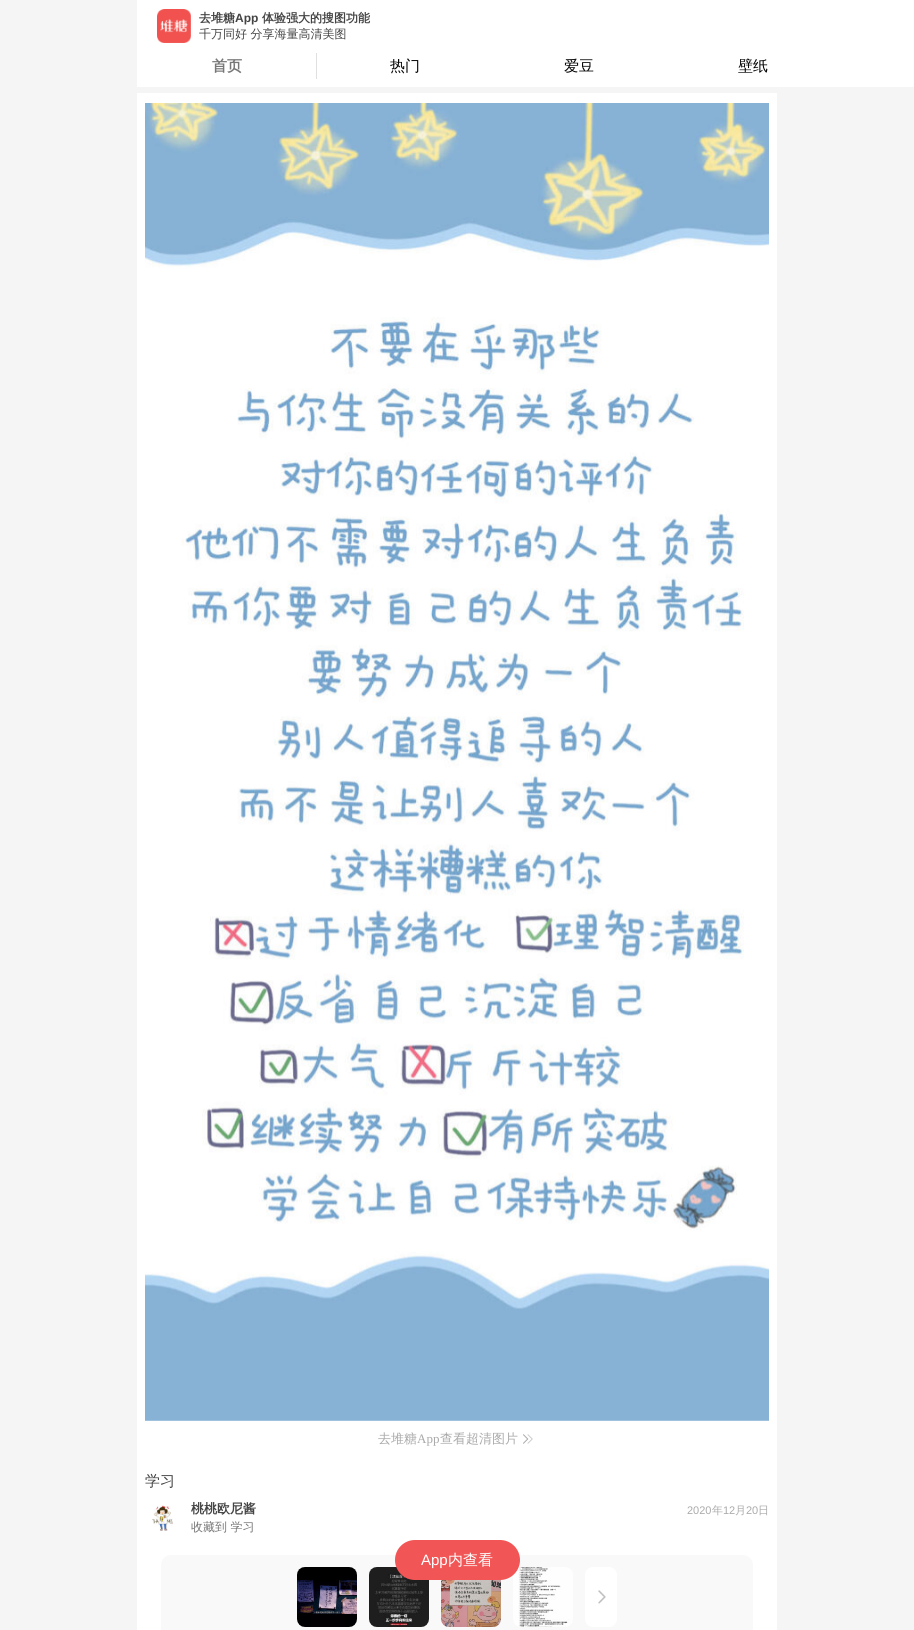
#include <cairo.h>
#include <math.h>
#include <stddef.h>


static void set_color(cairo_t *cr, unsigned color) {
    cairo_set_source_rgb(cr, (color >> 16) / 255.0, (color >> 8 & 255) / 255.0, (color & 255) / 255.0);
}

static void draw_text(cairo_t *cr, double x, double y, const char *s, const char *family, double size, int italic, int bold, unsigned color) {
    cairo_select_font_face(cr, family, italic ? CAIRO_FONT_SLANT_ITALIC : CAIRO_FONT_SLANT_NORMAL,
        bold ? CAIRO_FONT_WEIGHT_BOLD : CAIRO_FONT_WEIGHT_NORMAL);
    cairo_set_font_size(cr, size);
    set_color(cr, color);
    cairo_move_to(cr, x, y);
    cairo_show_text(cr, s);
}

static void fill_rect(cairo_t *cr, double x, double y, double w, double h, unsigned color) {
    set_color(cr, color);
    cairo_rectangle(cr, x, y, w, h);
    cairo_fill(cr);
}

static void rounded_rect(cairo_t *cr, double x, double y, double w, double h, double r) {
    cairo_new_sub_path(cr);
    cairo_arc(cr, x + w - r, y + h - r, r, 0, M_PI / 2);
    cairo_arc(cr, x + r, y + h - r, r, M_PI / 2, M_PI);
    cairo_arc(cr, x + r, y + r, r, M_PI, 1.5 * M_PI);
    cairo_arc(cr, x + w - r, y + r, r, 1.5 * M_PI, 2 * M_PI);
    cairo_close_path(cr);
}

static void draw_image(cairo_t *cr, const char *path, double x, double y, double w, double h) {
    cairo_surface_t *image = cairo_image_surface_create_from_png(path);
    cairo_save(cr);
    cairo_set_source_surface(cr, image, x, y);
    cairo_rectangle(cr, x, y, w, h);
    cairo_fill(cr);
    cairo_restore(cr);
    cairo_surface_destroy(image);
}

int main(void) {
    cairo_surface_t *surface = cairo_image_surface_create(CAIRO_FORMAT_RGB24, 914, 1630);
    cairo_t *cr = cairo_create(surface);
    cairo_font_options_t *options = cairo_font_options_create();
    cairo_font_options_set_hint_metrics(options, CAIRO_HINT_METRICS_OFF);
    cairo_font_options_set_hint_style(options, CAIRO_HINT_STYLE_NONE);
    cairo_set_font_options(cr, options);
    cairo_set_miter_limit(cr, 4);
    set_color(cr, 0xF5F5F5);
    cairo_paint(cr);
    fill_rect(cr, 137, 0, 777, 87, 0xFFFFFF);
    draw_image(cr, "assets/img1.png", 157, 9, 34, 34);
    draw_text(cr, 199, 22, "去堆糖", "WenQuanYi Zen Hei", 12, 0, 1, 0x444444);
    draw_text(cr, 235, 22, "App", "Liberation Sans", 12, 0, 1, 0x444444);
    draw_text(cr, 262, 22, "体验强大的搜图功能", "WenQuanYi Zen Hei", 12, 0, 1, 0x444444);
    draw_text(cr, 199, 38, "千万同好 分享海量高清美图", "WenQuanYi Zen Hei Medium", 12, 0, 0, 0x444444);
    draw_text(cr, 212, 71, "首页", "WenQuanYi Zen Hei", 15, 0, 1, 0x777777);
    fill_rect(cr, 316, 53, 1, 26, 0xE0E0E0);
    draw_text(cr, 390, 71, "热门", "WenQuanYi Zen Hei Medium", 15, 0, 0, 0x000000);
    draw_text(cr, 564, 71, "爱豆", "WenQuanYi Zen Hei Medium", 15, 0, 0, 0x000000);
    draw_text(cr, 738, 71, "壁纸", "WenQuanYi Zen Hei Medium", 15, 0, 0, 0x000000);
    fill_rect(cr, 137, 93, 640, 1537, 0xFFFFFF);
    draw_image(cr, "assets/img2.png", 145, 103, 624, 1318);
    draw_text(cr, 378, 1443, "去堆糖", "WenQuanYi Zen Hei Medium", 13, 0, 0, 0xAAAAAA);
    draw_text(cr, 417, 1443, "App", "Liberation Serif", 13, 0, 0, 0xAAAAAA);
    draw_text(cr, 440, 1443, "查看超清图片", "WenQuanYi Zen Hei Medium", 13, 0, 0, 0xAAAAAA);
    draw_image(cr, "assets/img3.png", 523, 1434, 10, 10);
    draw_text(cr, 145, 1486, "学习", "WenQuanYi Zen Hei Medium", 15, 0, 0, 0x444444);
    draw_image(cr, "assets/img4.png", 152, 1505, 21, 26);
    draw_text(cr, 191, 1513, "桃桃欧尼酱", "WenQuanYi Zen Hei", 13, 0, 1, 0x444444);
    draw_text(cr, 191, 1531, "收藏到 学习", "WenQuanYi Zen Hei Medium", 12, 0, 0, 0x777777);
    draw_text(cr, 687, 1514, "2020", "Liberation Sans", 11, 0, 0, 0xAAAAAA);
    draw_text(cr, 712, 1514, "年", "WenQuanYi Zen Hei Medium", 11, 0, 0, 0xAAAAAA);
    draw_text(cr, 723, 1514, "12", "Liberation Sans", 11, 0, 0, 0xAAAAAA);
    draw_text(cr, 735, 1514, "月", "WenQuanYi Zen Hei Medium", 11, 0, 0, 0xAAAAAA);
    draw_text(cr, 746, 1514, "20", "Liberation Sans", 11, 0, 0, 0xAAAAAA);
    draw_text(cr, 758, 1514, "日", "WenQuanYi Zen Hei Medium", 11, 0, 0, 0xAAAAAA);
    set_color(cr, 0xF9F9F9);
    rounded_rect(cr, 161, 1555, 592, 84, 10);
    cairo_fill(cr);
    draw_image(cr, "assets/img5.png", 297, 1567, 60, 60);
    draw_image(cr, "assets/img6.png", 369, 1567, 60, 60);
    draw_image(cr, "assets/img7.png", 441, 1579, 60, 48);
    draw_image(cr, "assets/img8.png", 513, 1567, 60, 60);
    set_color(cr, 0xFFFFFF);
    rounded_rect(cr, 585, 1567, 32, 60, 8);
    cairo_fill(cr);
    draw_image(cr, "assets/img9.png", 598, 1590, 8, 14);
    set_color(cr, 0xF25555);
    rounded_rect(cr, 395, 1540, 125, 40, 20);
    cairo_fill(cr);
    draw_text(cr, 421, 1565, "App", "Liberation Sans", 15, 0, 0, 0xFFFFFF);
    draw_text(cr, 448, 1565, "内查看", "WenQuanYi Zen Hei Medium", 15, 0, 0, 0xFFFFFF);
    cairo_surface_write_to_png(surface, "output.png");
    cairo_font_options_destroy(options);
    cairo_destroy(cr);
    cairo_surface_destroy(surface);
    return 0;
}
